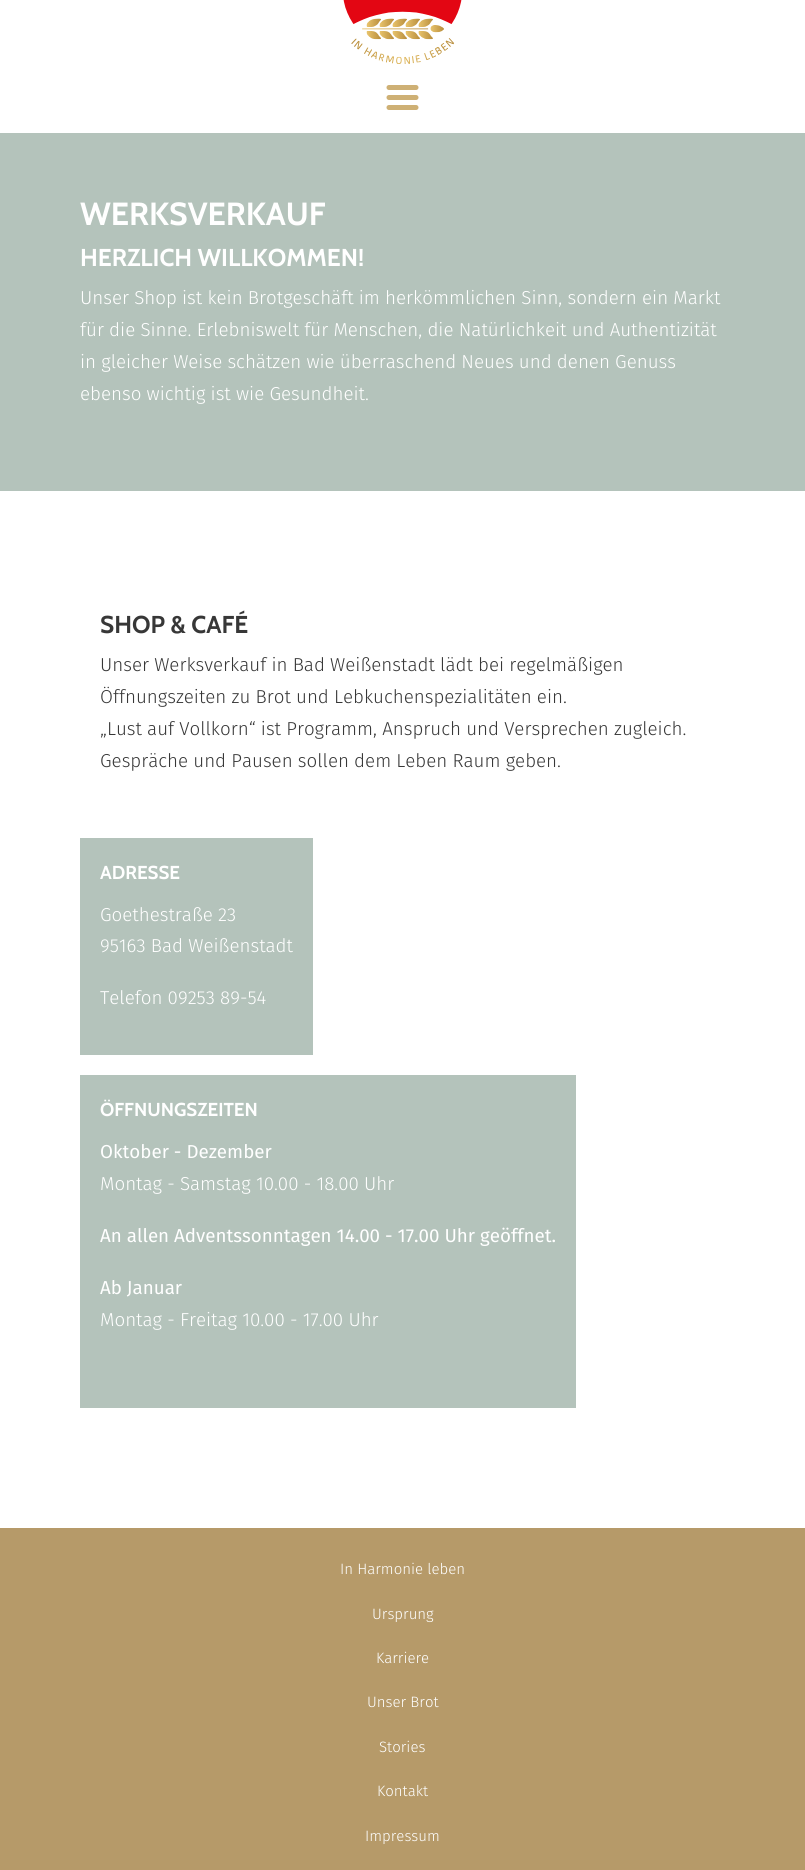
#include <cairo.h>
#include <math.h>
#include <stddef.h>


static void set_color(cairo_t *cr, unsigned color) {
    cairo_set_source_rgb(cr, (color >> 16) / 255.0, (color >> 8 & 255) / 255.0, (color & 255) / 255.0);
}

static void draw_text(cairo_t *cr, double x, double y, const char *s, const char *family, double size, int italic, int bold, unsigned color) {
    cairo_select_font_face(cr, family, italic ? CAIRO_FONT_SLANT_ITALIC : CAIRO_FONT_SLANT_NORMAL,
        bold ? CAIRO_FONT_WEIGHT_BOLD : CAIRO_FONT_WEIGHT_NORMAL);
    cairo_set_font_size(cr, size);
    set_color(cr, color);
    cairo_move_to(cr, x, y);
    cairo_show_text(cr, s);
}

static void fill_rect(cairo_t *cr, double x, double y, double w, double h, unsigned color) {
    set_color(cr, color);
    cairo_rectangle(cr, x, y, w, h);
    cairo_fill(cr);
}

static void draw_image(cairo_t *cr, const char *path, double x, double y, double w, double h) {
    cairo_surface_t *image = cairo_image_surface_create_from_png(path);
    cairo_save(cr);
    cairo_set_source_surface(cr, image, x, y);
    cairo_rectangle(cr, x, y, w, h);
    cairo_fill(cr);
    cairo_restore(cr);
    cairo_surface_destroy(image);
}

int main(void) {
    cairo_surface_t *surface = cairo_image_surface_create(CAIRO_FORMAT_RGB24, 805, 1870);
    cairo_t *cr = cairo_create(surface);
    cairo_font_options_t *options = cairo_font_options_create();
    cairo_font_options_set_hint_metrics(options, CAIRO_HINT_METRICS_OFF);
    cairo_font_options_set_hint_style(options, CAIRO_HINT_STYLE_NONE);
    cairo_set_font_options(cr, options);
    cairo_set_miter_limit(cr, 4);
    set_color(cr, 0xFFFFFF);
    cairo_paint(cr);
    draw_image(cr, "assets/img1.png", 343, 0, 119, 64);
    cairo_new_path(cr);
    cairo_move_to(cr, 389, 87.5);
    cairo_line_to(cr, 416, 87.5);
    cairo_move_to(cr, 389, 97.5);
    cairo_line_to(cr, 416, 97.5);
    cairo_move_to(cr, 389, 107.5);
    cairo_line_to(cr, 416, 107.5);
    set_color(cr, 0xCEB075);
    cairo_set_line_width(cr, 5);
    cairo_set_line_cap(cr, CAIRO_LINE_CAP_ROUND);
    cairo_stroke(cr);
    fill_rect(cr, 0, 133, 805, 358, 0xB4C3BB);
    draw_text(cr, 80, 225, "WERKSVERKAUF", "Cabin", 32, 0, 1, 0xFFFFFF);
    draw_text(cr, 80, 266, "HERZLICH WILLKOMMEN!", "Cabin", 24.4, 0, 1, 0xFFFFFF);
    draw_text(cr, 80, 304, "Unser Shop ist kein Brotgeschäft im herkömmlichen Sinn, sondern ein Markt", "Fira Sans Light", 18.75, 0, 0, 0xFFFFFF);
    draw_text(cr, 80, 336, "für die Sinne. Erlebniswelt für Menschen, die Natürlichkeit und Authentizität", "Fira Sans Light", 18.75, 0, 0, 0xFFFFFF);
    draw_text(cr, 80, 368, "in gleicher Weise schätzen wie überraschend Neues und denen Genuss", "Fira Sans Light", 18.75, 0, 0, 0xFFFFFF);
    draw_text(cr, 80, 400, "ebenso wichtig ist wie Gesundheit.", "Fira Sans Light", 18.75, 0, 0, 0xFFFFFF);
    draw_text(cr, 100, 633, "SHOP & CAFÉ", "Cabin", 24.4, 0, 1, 0x373737);
    draw_text(cr, 100, 671, "Unser Werksverkauf in Bad Weißenstadt lädt bei regelmäßigen", "Fira Sans Light", 18.75, 0, 0, 0x373737);
    draw_text(cr, 100, 703, "Öffnungszeiten zu Brot und Lebkuchenspezialitäten ein.", "Fira Sans Light", 18.75, 0, 0, 0x373737);
    draw_text(cr, 100, 735, "„Lust auf Vollkorn“ ist Programm, Anspruch und Versprechen zugleich.", "Fira Sans Light", 18.75, 0, 0, 0x373737);
    draw_text(cr, 100, 767, "Gespräche und Pausen sollen dem Leben Raum geben.", "Fira Sans Light", 18.75, 0, 0, 0x373737);
    fill_rect(cr, 80, 838, 233, 217, 0xB4C3BB);
    draw_text(cr, 100, 879, "ADRESSE", "Cabin", 18.75, 0, 1, 0xFFFFFF);
    draw_text(cr, 100, 921, "Goethestraße 23", "Fira Sans Light", 18.75, 0, 0, 0xFFFFFF);
    draw_text(cr, 100, 952, "95163 Bad Weißenstadt", "Fira Sans Light", 18.75, 0, 0, 0xFFFFFF);
    draw_text(cr, 100, 1004, "Telefon 09253 89-54", "Fira Sans Light", 18.75, 0, 0, 0xFFFFFF);
    fill_rect(cr, 80, 1075, 496, 333, 0xB4C3BB);
    draw_text(cr, 100, 1116, "ÖFFNUNGSZEITEN", "Cabin", 18.75, 0, 1, 0xFFFFFF);
    draw_text(cr, 100, 1158, "Oktober - Dezember", "Fira Sans", 18.75, 0, 0, 0xFFFFFF);
    draw_text(cr, 100, 1190, "Montag - Samstag 10.00 - 18.00 Uhr", "Fira Sans Light", 18.75, 0, 0, 0xFFFFFF);
    draw_text(cr, 100, 1242, "An allen Adventssonntagen 14.00 - 17.00 Uhr geöffnet.", "Fira Sans", 18.75, 0, 0, 0xFFFFFF);
    draw_text(cr, 100, 1294, "Ab Januar", "Fira Sans", 18.75, 0, 0, 0xFFFFFF);
    draw_text(cr, 100, 1326, "Montag - Freitag 10.00 - 17.00 Uhr", "Fira Sans Light", 18.75, 0, 0, 0xFFFFFF);
    fill_rect(cr, 0, 1528, 805, 342, 0xB69A69);
    draw_text(cr, 340, 1574, "In Harmonie leben", "Fira Sans Light", 15, 0, 0, 0xFFFFFF);
    draw_text(cr, 372, 1619, "Ursprung", "Fira Sans Light", 15, 0, 0, 0xFFFFFF);
    draw_text(cr, 376, 1663, "Karriere", "Fira Sans Light", 15, 0, 0, 0xFFFFFF);
    draw_text(cr, 367, 1707, "Unser Brot", "Fira Sans Light", 15, 0, 0, 0xFFFFFF);
    draw_text(cr, 379, 1752, "Stories", "Fira Sans Light", 15, 0, 0, 0xFFFFFF);
    draw_text(cr, 377, 1796, "Kontakt", "Fira Sans Light", 15, 0, 0, 0xFFFFFF);
    draw_text(cr, 365, 1841, "Impressum", "Fira Sans Light", 15, 0, 0, 0xFFFFFF);
    cairo_surface_write_to_png(surface, "output.png");
    cairo_font_options_destroy(options);
    cairo_destroy(cr);
    cairo_surface_destroy(surface);
    return 0;
}
